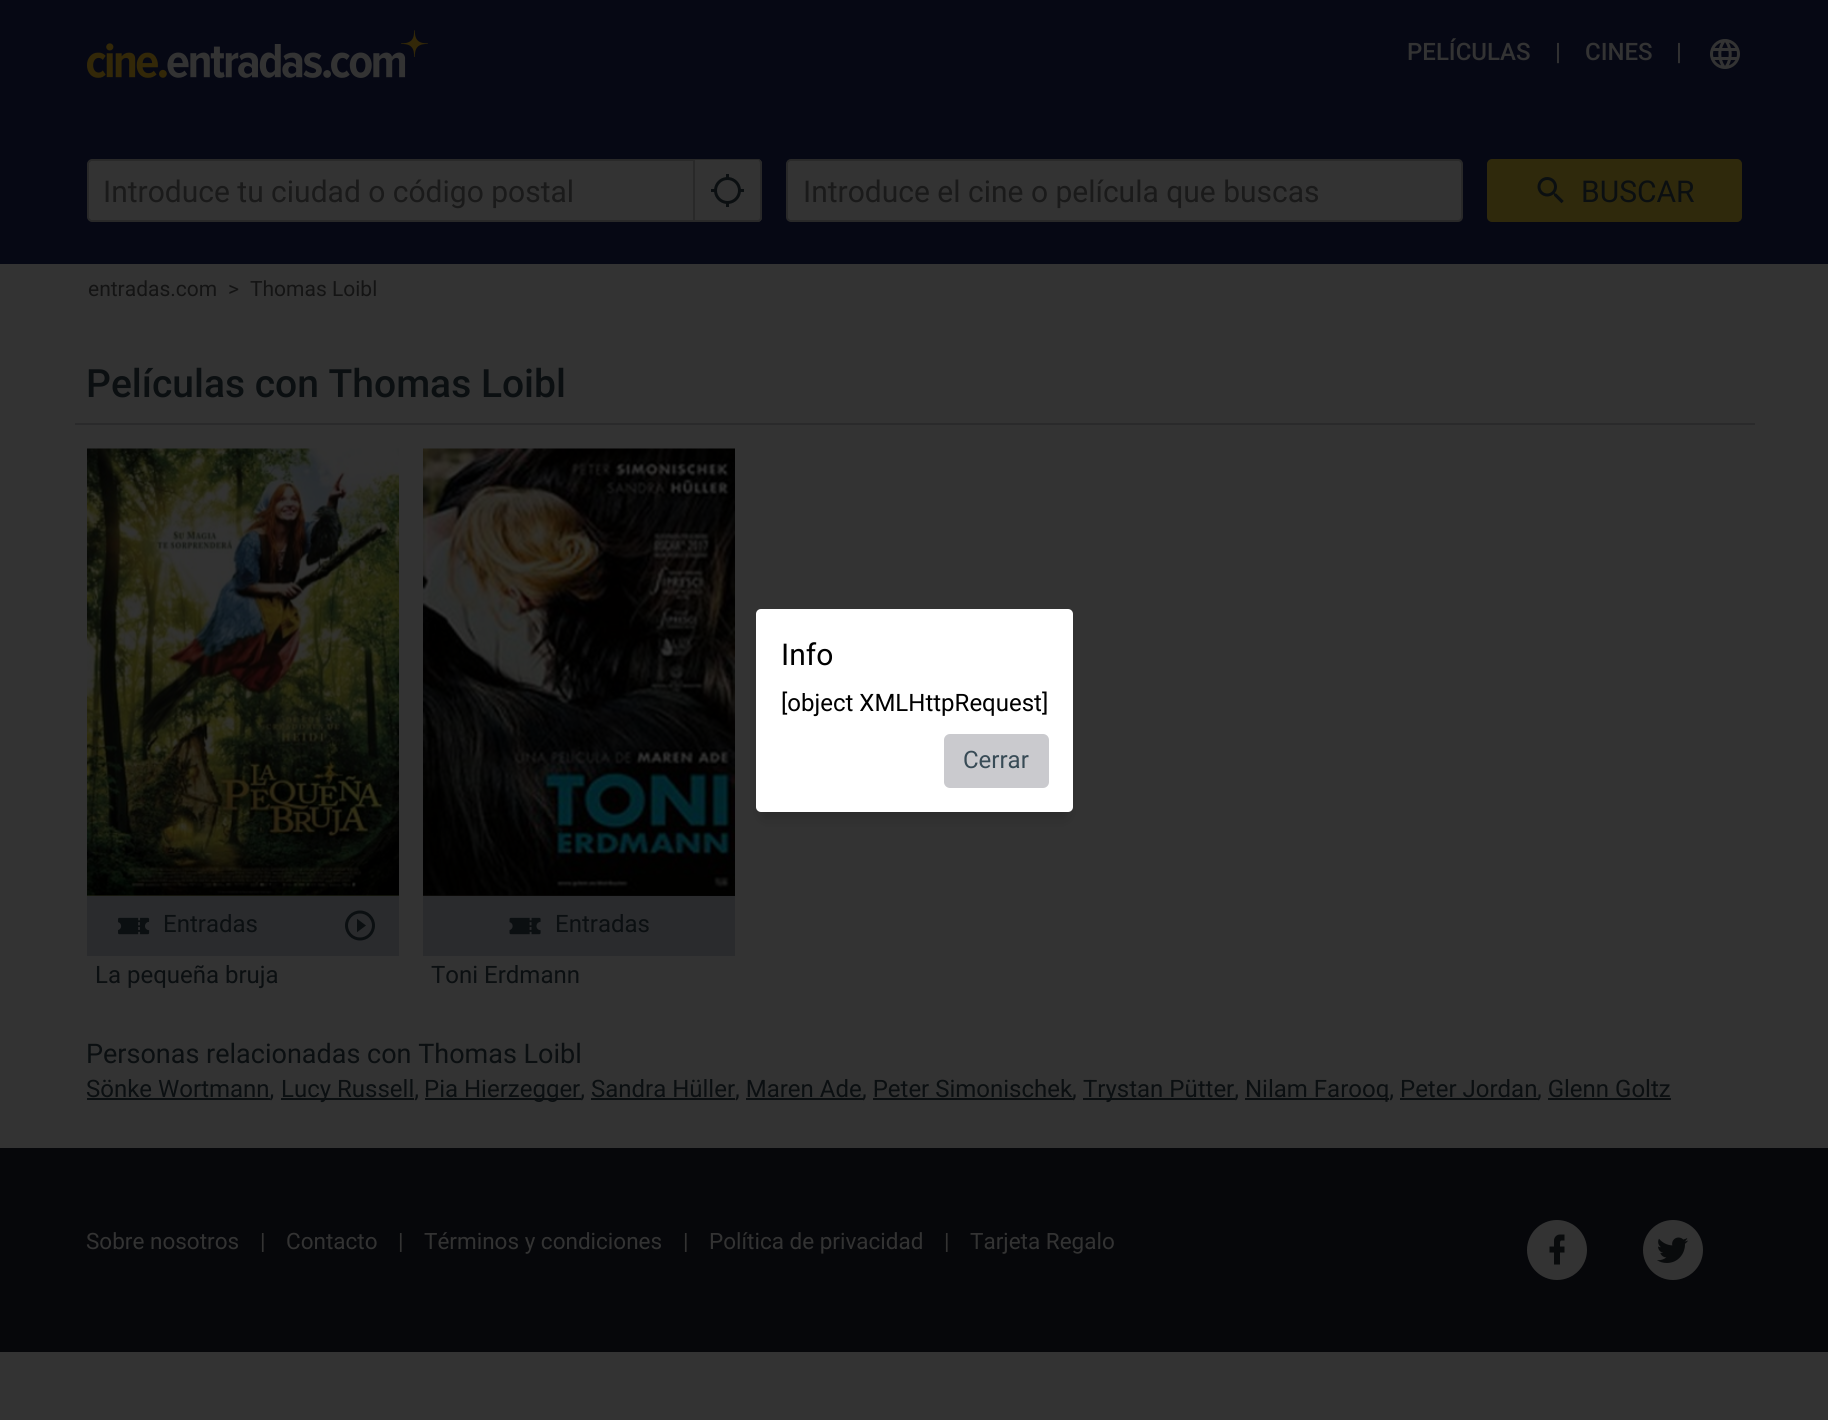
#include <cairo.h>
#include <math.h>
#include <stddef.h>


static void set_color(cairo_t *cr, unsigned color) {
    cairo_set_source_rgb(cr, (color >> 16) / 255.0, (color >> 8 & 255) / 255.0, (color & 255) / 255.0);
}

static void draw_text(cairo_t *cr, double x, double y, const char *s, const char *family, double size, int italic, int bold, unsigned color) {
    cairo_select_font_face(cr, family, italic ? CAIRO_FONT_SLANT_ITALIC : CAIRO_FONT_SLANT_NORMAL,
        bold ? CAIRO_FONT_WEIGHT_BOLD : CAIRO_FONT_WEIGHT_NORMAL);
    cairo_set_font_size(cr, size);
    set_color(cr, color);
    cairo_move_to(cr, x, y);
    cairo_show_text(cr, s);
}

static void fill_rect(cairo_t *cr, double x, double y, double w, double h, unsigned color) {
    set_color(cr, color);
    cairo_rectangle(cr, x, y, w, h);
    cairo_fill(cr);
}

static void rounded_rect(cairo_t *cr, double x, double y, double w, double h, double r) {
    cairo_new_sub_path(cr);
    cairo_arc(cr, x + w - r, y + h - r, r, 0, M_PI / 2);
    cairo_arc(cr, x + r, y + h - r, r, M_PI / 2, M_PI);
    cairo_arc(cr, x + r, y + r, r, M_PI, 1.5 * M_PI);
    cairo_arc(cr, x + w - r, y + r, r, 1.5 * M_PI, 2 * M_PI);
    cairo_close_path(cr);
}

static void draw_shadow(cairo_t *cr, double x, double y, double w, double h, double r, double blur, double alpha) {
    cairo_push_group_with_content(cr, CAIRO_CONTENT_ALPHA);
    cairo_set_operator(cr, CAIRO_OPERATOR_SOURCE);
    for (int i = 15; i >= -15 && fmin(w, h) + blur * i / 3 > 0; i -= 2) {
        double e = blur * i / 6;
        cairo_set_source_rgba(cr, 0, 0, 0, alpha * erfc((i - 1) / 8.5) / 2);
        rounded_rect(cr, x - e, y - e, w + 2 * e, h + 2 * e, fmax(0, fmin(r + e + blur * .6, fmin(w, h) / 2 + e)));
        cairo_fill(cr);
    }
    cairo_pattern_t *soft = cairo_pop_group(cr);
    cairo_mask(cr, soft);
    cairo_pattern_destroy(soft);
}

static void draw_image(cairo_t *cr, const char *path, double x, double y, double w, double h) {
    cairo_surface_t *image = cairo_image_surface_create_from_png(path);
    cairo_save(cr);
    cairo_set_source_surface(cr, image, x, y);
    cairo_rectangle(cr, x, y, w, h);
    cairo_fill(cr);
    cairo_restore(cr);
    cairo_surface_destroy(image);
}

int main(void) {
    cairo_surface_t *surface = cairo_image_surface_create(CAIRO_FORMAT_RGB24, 1828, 1420);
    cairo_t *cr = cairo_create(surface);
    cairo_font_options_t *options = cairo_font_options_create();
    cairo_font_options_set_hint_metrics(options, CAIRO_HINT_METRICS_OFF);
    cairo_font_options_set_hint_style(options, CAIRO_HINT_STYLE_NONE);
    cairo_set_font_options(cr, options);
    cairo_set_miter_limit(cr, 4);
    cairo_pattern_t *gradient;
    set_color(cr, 0x333333);
    cairo_paint(cr);
    fill_rect(cr, 0, 0, 1828, 264, 0x060814);
    draw_image(cr, "assets/img1.png", 87, 30, 341, 48);
    draw_text(cr, 1407, 60, "PELÍCULAS", "Roboto Medium", 24, 0, 0, 0x333333);
    draw_text(cr, 1555, 60, "|", "Roboto Medium", 24, 0, 0, 0x333333);
    draw_text(cr, 1585, 60, "CINES", "Roboto Medium", 24, 0, 0, 0x333333);
    draw_text(cr, 1676, 60, "|", "Roboto Medium", 24, 0, 0, 0x333333);
    draw_image(cr, "assets/img2.png", 1710, 39, 30, 30);
    cairo_new_path(cr);
    cairo_move_to(cr, 92, 160);
    cairo_line_to(cr, 694, 160);
    cairo_line_to(cr, 694, 221);
    cairo_line_to(cr, 92, 221);
    cairo_curve_to(cr, 90, 221, 88, 219, 88, 217);
    cairo_line_to(cr, 88, 164);
    cairo_curve_to(cr, 88, 162, 90, 160, 92, 160);
    cairo_close_path(cr);
    cairo_fill_preserve(cr);
    set_color(cr, 0x292929);
    cairo_stroke(cr);
    draw_text(cr, 103, 202, "Introduce tu ciudad o código postal", "Roboto", 30, 0, 0, 0x1A1A1A);
    set_color(cr, 0x333333);
    cairo_new_path(cr);
    cairo_move_to(cr, 695, 159);
    cairo_line_to(cr, 757, 159);
    cairo_curve_to(cr, 760, 159, 762, 161, 762, 164);
    cairo_line_to(cr, 762, 217);
    cairo_curve_to(cr, 762, 220, 760, 222, 757, 222);
    cairo_line_to(cr, 695, 222);
    cairo_close_path(cr);
    cairo_fill(cr);
    set_color(cr, 0x292929);
    cairo_set_fill_rule(cr, CAIRO_FILL_RULE_EVEN_ODD);
    cairo_new_path(cr);
    cairo_move_to(cr, 694, 159);
    cairo_line_to(cr, 758, 159);
    cairo_curve_to(cr, 760, 159, 762, 161, 762, 164);
    cairo_line_to(cr, 762, 218);
    cairo_curve_to(cr, 762, 220, 760, 222, 758, 222);
    cairo_line_to(cr, 694, 222);
    cairo_close_path(cr);
    cairo_move_to(cr, 694, 160);
    cairo_line_to(cr, 758, 160);
    cairo_curve_to(cr, 759, 160, 760, 162, 760, 164);
    cairo_line_to(cr, 760, 218);
    cairo_curve_to(cr, 760, 219, 759, 220, 758, 220);
    cairo_line_to(cr, 694, 220);
    cairo_close_path(cr);
    cairo_fill(cr);
    draw_image(cr, "assets/img3.png", 711, 174, 33, 33);
    set_color(cr, 0x333333);
    rounded_rect(cr, 787, 160, 675, 61, 4);
    cairo_fill_preserve(cr);
    set_color(cr, 0x292929);
    cairo_stroke(cr);
    draw_text(cr, 803, 202, "Introduce el cine o película que buscas", "Roboto", 30, 0, 0, 0x1A1A1A);
    set_color(cr, 0x2F290C);
    rounded_rect(cr, 1488, 160, 253, 61, 4);
    cairo_fill_preserve(cr);
    cairo_stroke(cr);
    draw_image(cr, "assets/img4.png", 1537, 177, 27, 27);
    draw_text(cr, 1581, 202, "BUSCAR", "Roboto", 30, 0, 0, 0x0B0F11);
    draw_text(cr, 88, 296, "entradas.com", "Roboto", 21, 0, 0, 0x141414);
    draw_text(cr, 228, 296, ">", "Roboto", 21, 0, 0, 0x141414);
    draw_text(cr, 250, 296, "Thomas Loibl", "Roboto", 21, 0, 0, 0x141414);
    fill_rect(cr, 75, 423, 1680, 2, 0x2A2A2B);
    draw_text(cr, 86, 397, "Películas con Thomas Loibl", "Roboto Medium", 39, 0, 0, 0x0B0F11);
    gradient = cairo_pattern_create_linear(53, 482, 433, 862);
    cairo_pattern_add_color_stop_rgba(gradient, 0, 0.173, 0.169, 0.114, 1);
    cairo_pattern_add_color_stop_rgba(gradient, 1, 0.129, 0.141, 0.082, 1);
    cairo_set_source(cr, gradient);
    cairo_pattern_destroy(gradient);
    cairo_rectangle(cr, 87, 895, 312, 1);
    cairo_fill(cr);
    draw_image(cr, "assets/img5.png", 87, 448, 312, 448);
    fill_rect(cr, 87, 896, 312, 60, 0x2A2B2D);
    draw_image(cr, "assets/img6.png", 118, 917, 32, 18);
    draw_text(cr, 163, 932, "Entradas", "Roboto", 24, 0, 0, 0x0B0F11);
    draw_image(cr, "assets/img7.png", 345, 910, 30, 31);
    draw_text(cr, 95, 983, "La pequeña bruja", "Roboto", 24, 0, 0, 0x0B0F11);
    gradient = cairo_pattern_create_linear(389, 482, 769, 862);
    cairo_pattern_add_color_stop_rgba(gradient, 0, 0.173, 0.157, 0.133, 1);
    cairo_pattern_add_color_stop_rgba(gradient, 1, 0.012, 0.012, 0.012, 1);
    cairo_set_source(cr, gradient);
    cairo_pattern_destroy(gradient);
    cairo_rectangle(cr, 423, 895, 312, 1);
    cairo_fill(cr);
    draw_image(cr, "assets/img8.png", 423, 448, 312, 448);
    fill_rect(cr, 423, 896, 312, 60, 0x2A2B2D);
    draw_image(cr, "assets/img9.png", 509, 917, 32, 18);
    draw_text(cr, 555, 932, "Entradas", "Roboto", 24, 0, 0, 0x0B0F11);
    draw_text(cr, 431, 983, "Toni Erdmann", "Roboto", 24, 0, 0, 0x0B0F11);
    draw_text(cr, 86, 1063, "Personas relacionadas con Thomas Loibl", "Roboto", 27, 0, 0, 0x0B0F11);
    fill_rect(cr, 87, 1098, 183, 2, 0x0B0F11);
    draw_text(cr, 86, 1097, "Sönke Wortmann,", "Roboto", 24, 0, 0, 0x0B0F11);
    fill_rect(cr, 281, 1098, 133, 2, 0x0B0F11);
    draw_text(cr, 281, 1097, "Lucy Russell,", "Roboto", 24, 0, 0, 0x0B0F11);
    fill_rect(cr, 425, 1098, 156, 2, 0x0B0F11);
    draw_text(cr, 424, 1097, "Pia Hierzegger, Sandra Hüller, Maren Ade", "Roboto", 24, 0, 0, 0x0B0F11);
    fill_rect(cr, 746, 1098, 117, 2, 0x0B0F11);
    draw_text(cr, 862, 1097, ", Peter Simonischek", "Roboto", 24, 0, 0, 0x0B0F11);
    fill_rect(cr, 873, 1098, 200, 2, 0x0B0F11);
    draw_text(cr, 1072, 1097, ",", "Roboto", 24, 0, 0, 0x0B0F11);
    fill_rect(cr, 1083, 1098, 152, 2, 0x0B0F11);
    draw_text(cr, 1083, 1097, "Trystan Pütter,", "Roboto", 24, 0, 0, 0x0B0F11);
    fill_rect(cr, 1245, 1098, 144, 2, 0x0B0F11);
    draw_text(cr, 1245, 1097, "Nilam Farooq, Peter Jordan", "Roboto", 24, 0, 0, 0x0B0F11);
    fill_rect(cr, 1400, 1098, 138, 2, 0x0B0F11);
    draw_text(cr, 1537, 1097, ", Glenn Goltz", "Roboto", 24, 0, 0, 0x0B0F11);
    fill_rect(cr, 591, 1098, 144, 2, 0x0B0F11);
    fill_rect(cr, 1548, 1098, 123, 2, 0x0B0F11);
    fill_rect(cr, 0, 1148, 1828, 204, 0x06070A);
    draw_text(cr, 86, 1249, "Sobre nosotros", "Roboto", 22.5, 0, 0, 0x333333);
    draw_text(cr, 260, 1249, "|", "Roboto", 22.5, 0, 0, 0x333333);
    draw_text(cr, 286, 1249, "Contacto", "Roboto", 22.5, 0, 0, 0x333333);
    draw_text(cr, 398, 1249, "|", "Roboto", 22.5, 0, 0, 0x333333);
    draw_text(cr, 424, 1249, "Términos y condiciones", "Roboto", 22.5, 0, 0, 0x333333);
    draw_text(cr, 683, 1249, "|", "Roboto", 22.5, 0, 0, 0x333333);
    draw_text(cr, 709, 1249, "Política de privacidad", "Roboto", 22.5, 0, 0, 0x333333);
    draw_text(cr, 944, 1249, "|", "Roboto", 22.5, 0, 0, 0x333333);
    draw_text(cr, 970, 1249, "Tarjeta Regalo", "Roboto", 22.5, 0, 0, 0x333333);
    cairo_new_path(cr);
    cairo_arc(cr, 1557, 1250, 30, 0, 2 * M_PI);
    cairo_fill(cr);
    draw_image(cr, "assets/img10.png", 1549, 1234, 16, 31);
    cairo_arc(cr, 1673, 1250, 30, 0, 2 * M_PI);
    cairo_fill(cr);
    draw_image(cr, "assets/img11.png", 1657, 1237, 31, 26);
    set_color(cr, 0x000000);
    draw_shadow(cr, 764, 629, 301, 187, 0, 7, 0.2);
    set_color(cr, 0xFFFFFF);
    rounded_rect(cr, 756, 609, 317, 203, 5);
    cairo_fill(cr);
    draw_text(cr, 781, 665, "Info", "Roboto", 30, 0, 0, 0x000000);
    draw_text(cr, 781, 711, "[object XMLHttpRequest]", "Roboto", 24, 0, 0, 0x000000);
    set_color(cr, 0xCACACE);
    rounded_rect(cr, 945, 735, 103, 52, 5);
    cairo_fill_preserve(cr);
    cairo_stroke(cr);
    draw_text(cr, 963, 768, "Cerrar", "Roboto", 24, 0, 0, 0x384B56);
    cairo_surface_write_to_png(surface, "output.png");
    cairo_font_options_destroy(options);
    cairo_destroy(cr);
    cairo_surface_destroy(surface);
    return 0;
}
